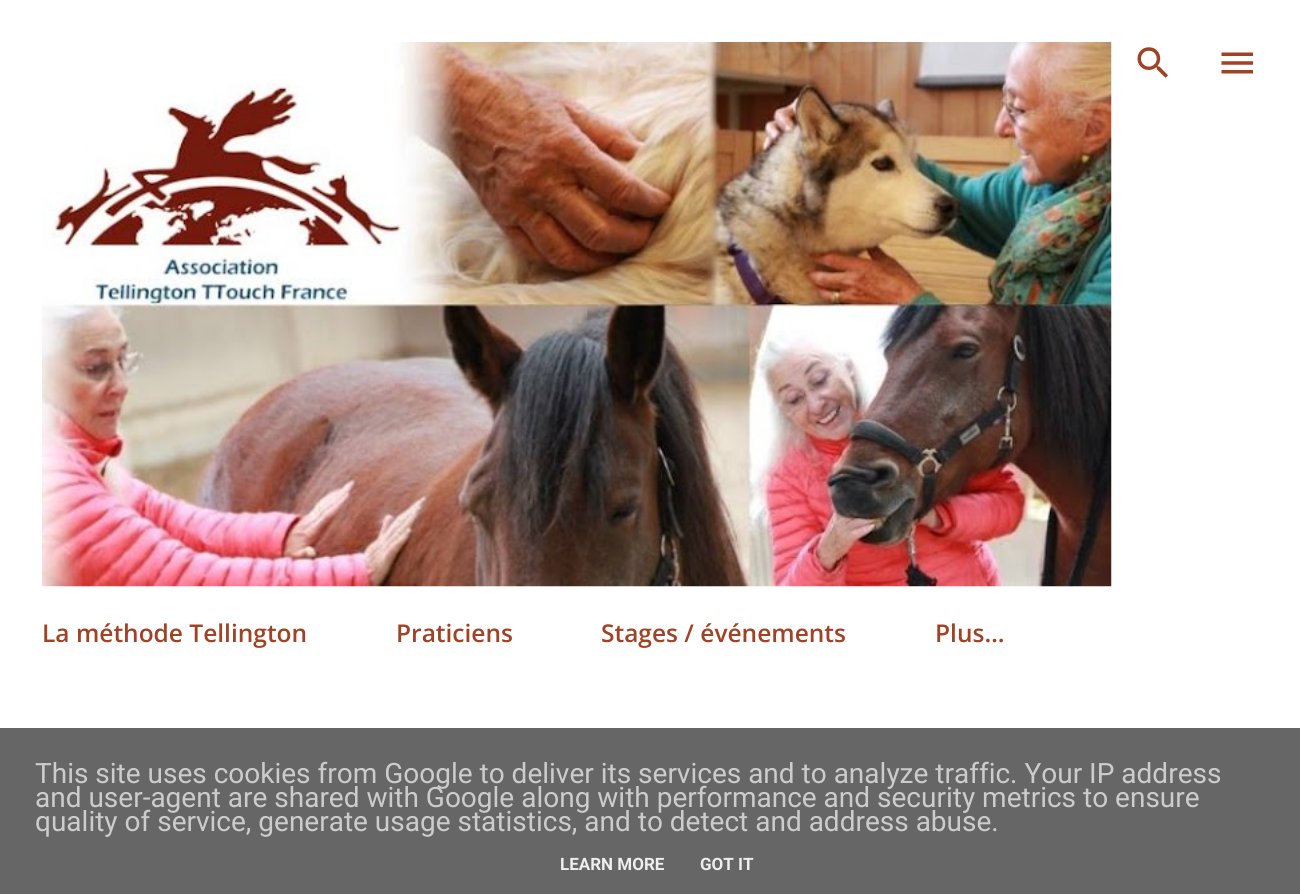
#include <cairo.h>
#include <math.h>
#include <stddef.h>


static void set_color(cairo_t *cr, unsigned color) {
    cairo_set_source_rgb(cr, (color >> 16) / 255.0, (color >> 8 & 255) / 255.0, (color & 255) / 255.0);
}

static void draw_text(cairo_t *cr, double x, double y, const char *s, const char *family, double size, int italic, int bold, unsigned color) {
    cairo_select_font_face(cr, family, italic ? CAIRO_FONT_SLANT_ITALIC : CAIRO_FONT_SLANT_NORMAL,
        bold ? CAIRO_FONT_WEIGHT_BOLD : CAIRO_FONT_WEIGHT_NORMAL);
    cairo_set_font_size(cr, size);
    set_color(cr, color);
    cairo_move_to(cr, x, y);
    cairo_show_text(cr, s);
}

static void fill_rect(cairo_t *cr, double x, double y, double w, double h, unsigned color) {
    set_color(cr, color);
    cairo_rectangle(cr, x, y, w, h);
    cairo_fill(cr);
}

static void draw_image(cairo_t *cr, const char *path, double x, double y, double w, double h) {
    cairo_surface_t *image = cairo_image_surface_create_from_png(path);
    cairo_save(cr);
    cairo_set_source_surface(cr, image, x, y);
    cairo_rectangle(cr, x, y, w, h);
    cairo_fill(cr);
    cairo_restore(cr);
    cairo_surface_destroy(image);
}

int main(void) {
    cairo_surface_t *surface = cairo_image_surface_create(CAIRO_FORMAT_RGB24, 1300, 894);
    cairo_t *cr = cairo_create(surface);
    cairo_font_options_t *options = cairo_font_options_create();
    cairo_font_options_set_hint_metrics(options, CAIRO_HINT_METRICS_OFF);
    cairo_font_options_set_hint_style(options, CAIRO_HINT_STYLE_NONE);
    cairo_set_font_options(cr, options);
    cairo_set_miter_limit(cr, 4);
    set_color(cr, 0xFFFFFF);
    cairo_paint(cr);
    draw_image(cr, "assets/img1.png", 42, 42, 1070, 545);
    draw_image(cr, "assets/img2.png", 1137, 47, 31, 31);
    draw_image(cr, "assets/img3.png", 1221, 52, 32, 22);
    draw_text(cr, 42, 642, "La méthode Tellington", "Open Sans SemiBold", 24.5, 0, 0, 0xA04224);
    draw_text(cr, 396, 642, "Praticiens", "Open Sans SemiBold", 24.5, 0, 0, 0xA04224);
    draw_text(cr, 601, 642, "Stages / événements", "Open Sans SemiBold", 24.5, 0, 0, 0xA04224);
    draw_text(cr, 935, 642, "Plus…", "Open Sans SemiBold", 24.5, 0, 0, 0xA04224);
    fill_rect(cr, 0, 728, 1300, 166, 0x666666);
    draw_text(cr, 35, 783, "This site uses cookies from Google to deliver its services and to analyze traffic. Your IP address", "Roboto", 28, 0, 0, 0xCCCCCC);
    draw_text(cr, 35, 807, "and user-agent are shared with Google along with performance and security metrics to ensure", "Roboto", 28, 0, 0, 0xCCCCCC);
    draw_text(cr, 35, 831, "quality of service, generate usage statistics, and to detect and address abuse.", "Roboto", 28, 0, 0, 0xCCCCCC);
    draw_text(cr, 560, 870, "LEARN MORE", "Roboto", 17, 0, 1, 0xEEEEEE);
    draw_text(cr, 700, 870, "GOT IT", "Roboto", 17, 0, 1, 0xEEEEEE);
    cairo_surface_write_to_png(surface, "output.png");
    cairo_font_options_destroy(options);
    cairo_destroy(cr);
    cairo_surface_destroy(surface);
    return 0;
}
